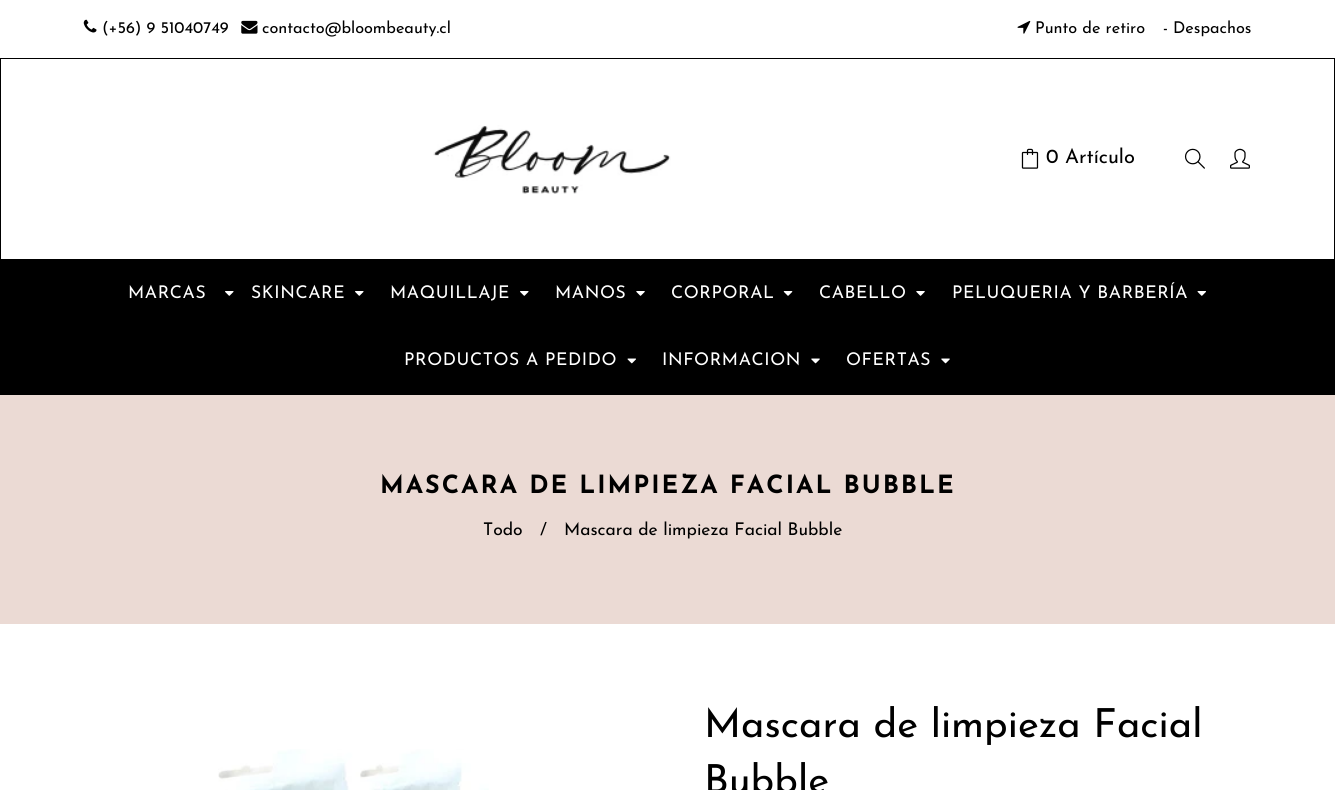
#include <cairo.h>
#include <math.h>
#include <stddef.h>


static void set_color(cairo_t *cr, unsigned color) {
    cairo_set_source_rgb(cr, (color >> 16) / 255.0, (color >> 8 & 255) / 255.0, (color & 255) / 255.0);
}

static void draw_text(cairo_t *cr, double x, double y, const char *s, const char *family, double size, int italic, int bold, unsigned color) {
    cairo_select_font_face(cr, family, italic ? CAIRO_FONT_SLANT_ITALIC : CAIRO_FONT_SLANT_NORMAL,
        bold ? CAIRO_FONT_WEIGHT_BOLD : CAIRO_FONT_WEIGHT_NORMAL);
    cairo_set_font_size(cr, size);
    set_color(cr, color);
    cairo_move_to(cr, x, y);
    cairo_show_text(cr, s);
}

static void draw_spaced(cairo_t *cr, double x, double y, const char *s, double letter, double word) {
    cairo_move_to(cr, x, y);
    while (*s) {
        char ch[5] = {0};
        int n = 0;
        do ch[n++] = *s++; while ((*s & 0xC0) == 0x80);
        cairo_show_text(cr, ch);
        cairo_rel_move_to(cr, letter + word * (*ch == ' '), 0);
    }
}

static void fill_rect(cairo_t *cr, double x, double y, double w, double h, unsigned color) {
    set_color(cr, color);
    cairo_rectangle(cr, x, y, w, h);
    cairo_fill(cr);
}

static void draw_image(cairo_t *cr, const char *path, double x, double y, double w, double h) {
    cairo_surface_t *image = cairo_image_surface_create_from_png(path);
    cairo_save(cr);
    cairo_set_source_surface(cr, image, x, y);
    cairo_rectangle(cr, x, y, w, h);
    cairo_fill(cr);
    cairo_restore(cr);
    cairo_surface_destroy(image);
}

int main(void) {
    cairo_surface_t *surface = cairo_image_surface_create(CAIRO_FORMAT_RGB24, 1335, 790);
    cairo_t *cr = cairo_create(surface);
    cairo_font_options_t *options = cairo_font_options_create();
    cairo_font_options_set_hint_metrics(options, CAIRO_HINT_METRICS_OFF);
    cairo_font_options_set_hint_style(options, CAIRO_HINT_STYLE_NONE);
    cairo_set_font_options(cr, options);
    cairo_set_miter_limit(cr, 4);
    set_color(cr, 0xFFFFFF);
    cairo_paint(cr);
    draw_image(cr, "assets/img1.png", 83, 19, 14, 14);
    draw_text(cr, 102, 33, "(+56) 9 51040749", "Josefin Sans", 16.25, 0, 0, 0x000000);
    draw_image(cr, "assets/img2.png", 241, 20, 17, 14);
    draw_text(cr, 262, 33, "contacto@bloombeauty.cl", "Josefin Sans", 16.25, 0, 0, 0x000000);
    draw_image(cr, "assets/img3.png", 1017, 20, 14, 14);
    draw_text(cr, 1035, 33, "Punto de retiro", "Josefin Sans", 16.25, 0, 0, 0x000000);
    draw_text(cr, 1163, 33, "- Despachos", "Josefin Sans", 16.25, 0, 0, 0x000000);
    cairo_rectangle(cr, 0.5, 58.5, 1334, 201);
    cairo_set_line_width(cr, 1);
    cairo_stroke(cr);
    draw_image(cr, "assets/img4.png", 433, 125, 238, 69);
    draw_image(cr, "assets/img5.png", 1021, 148, 18, 21);
    draw_text(cr, 1046, 163, "0", "Josefin Sans", 20, 0, 0, 0x000000);
    draw_text(cr, 1065, 163, "Artículo", "Josefin Sans", 20, 0, 0, 0x000000);
    draw_image(cr, "assets/img6.png", 1184, 148, 21, 21);
    draw_image(cr, "assets/img7.png", 1230, 148, 20, 21);
    fill_rect(cr, 0, 260, 1335, 135, 0x000000);
    cairo_set_font_size(cr, 17.5);
    set_color(cr, 0xFFFFFF);
    draw_spaced(cr, 128, 298, "MARCAS", 0.6, 0);
    draw_image(cr, "assets/img8.png", 225, 291, 9, 5);
    draw_spaced(cr, 251, 298, "SKINCARE", 0.6, 0);
    draw_image(cr, "assets/img8.png", 355, 291, 9, 5);
    draw_spaced(cr, 390, 298, "MAQUILLAJE", 0.6, 0);
    draw_image(cr, "assets/img8.png", 520, 291, 9, 5);
    draw_spaced(cr, 555, 298, "MANOS", 0.6, 0);
    draw_image(cr, "assets/img9.png", 636, 291, 9, 5);
    draw_spaced(cr, 671, 298, "CORPORAL", 0.6, 0);
    draw_image(cr, "assets/img10.png", 783, 291, 10, 5);
    draw_spaced(cr, 819, 298, "CABELLO", 0.6, 0);
    draw_image(cr, "assets/img9.png", 916, 291, 9, 5);
    draw_spaced(cr, 952, 298, "PELUQUERIA Y BARBERÍA", 0.6, 0);
    draw_image(cr, "assets/img11.png", 1197, 291, 9, 5);
    draw_spaced(cr, 404, 365, "PRODUCTOS A PEDIDO", 0.6, 0);
    draw_image(cr, "assets/img12.png", 627, 358, 9, 6);
    draw_spaced(cr, 662, 365, "INFORMACION", 0.6, 0);
    draw_image(cr, "assets/img13.png", 811, 358, 9, 6);
    draw_spaced(cr, 846, 365, "OFERTAS", 0.6, 0);
    draw_image(cr, "assets/img13.png", 941, 358, 9, 6);
    fill_rect(cr, 0, 395, 1335, 229, 0xEBDAD4);
    cairo_select_font_face(cr, "Josefin Sans", CAIRO_FONT_SLANT_NORMAL, CAIRO_FONT_WEIGHT_BOLD);
    cairo_set_font_size(cr, 25);
    set_color(cr, 0x000000);
    draw_spaced(cr, 380, 493, "MASCARA DE LIMPIEZA FACIAL BUBBLE", 2, 0);
    draw_text(cr, 483, 535, "Todo", "Josefin Sans", 17.5, 0, 0, 0x000000);
    draw_text(cr, 540, 535, "/", "Josefin Sans", 17.5, 0, 0, 0x000000);
    draw_text(cr, 564, 535, "Mascara de limpieza Facial Bubble", "Josefin Sans", 17.5, 0, 0, 0x000000);
    draw_image(cr, "assets/img14.png", 218, 749, 271, 41);
    draw_text(cr, 704, 737, "Mascara de limpieza Facial", "Josefin Sans", 40, 0, 0, 0x000000);
    draw_text(cr, 704, 793, "Bubble", "Josefin Sans", 40, 0, 0, 0x000000);
    cairo_surface_write_to_png(surface, "output.png");
    cairo_font_options_destroy(options);
    cairo_destroy(cr);
    cairo_surface_destroy(surface);
    return 0;
}
